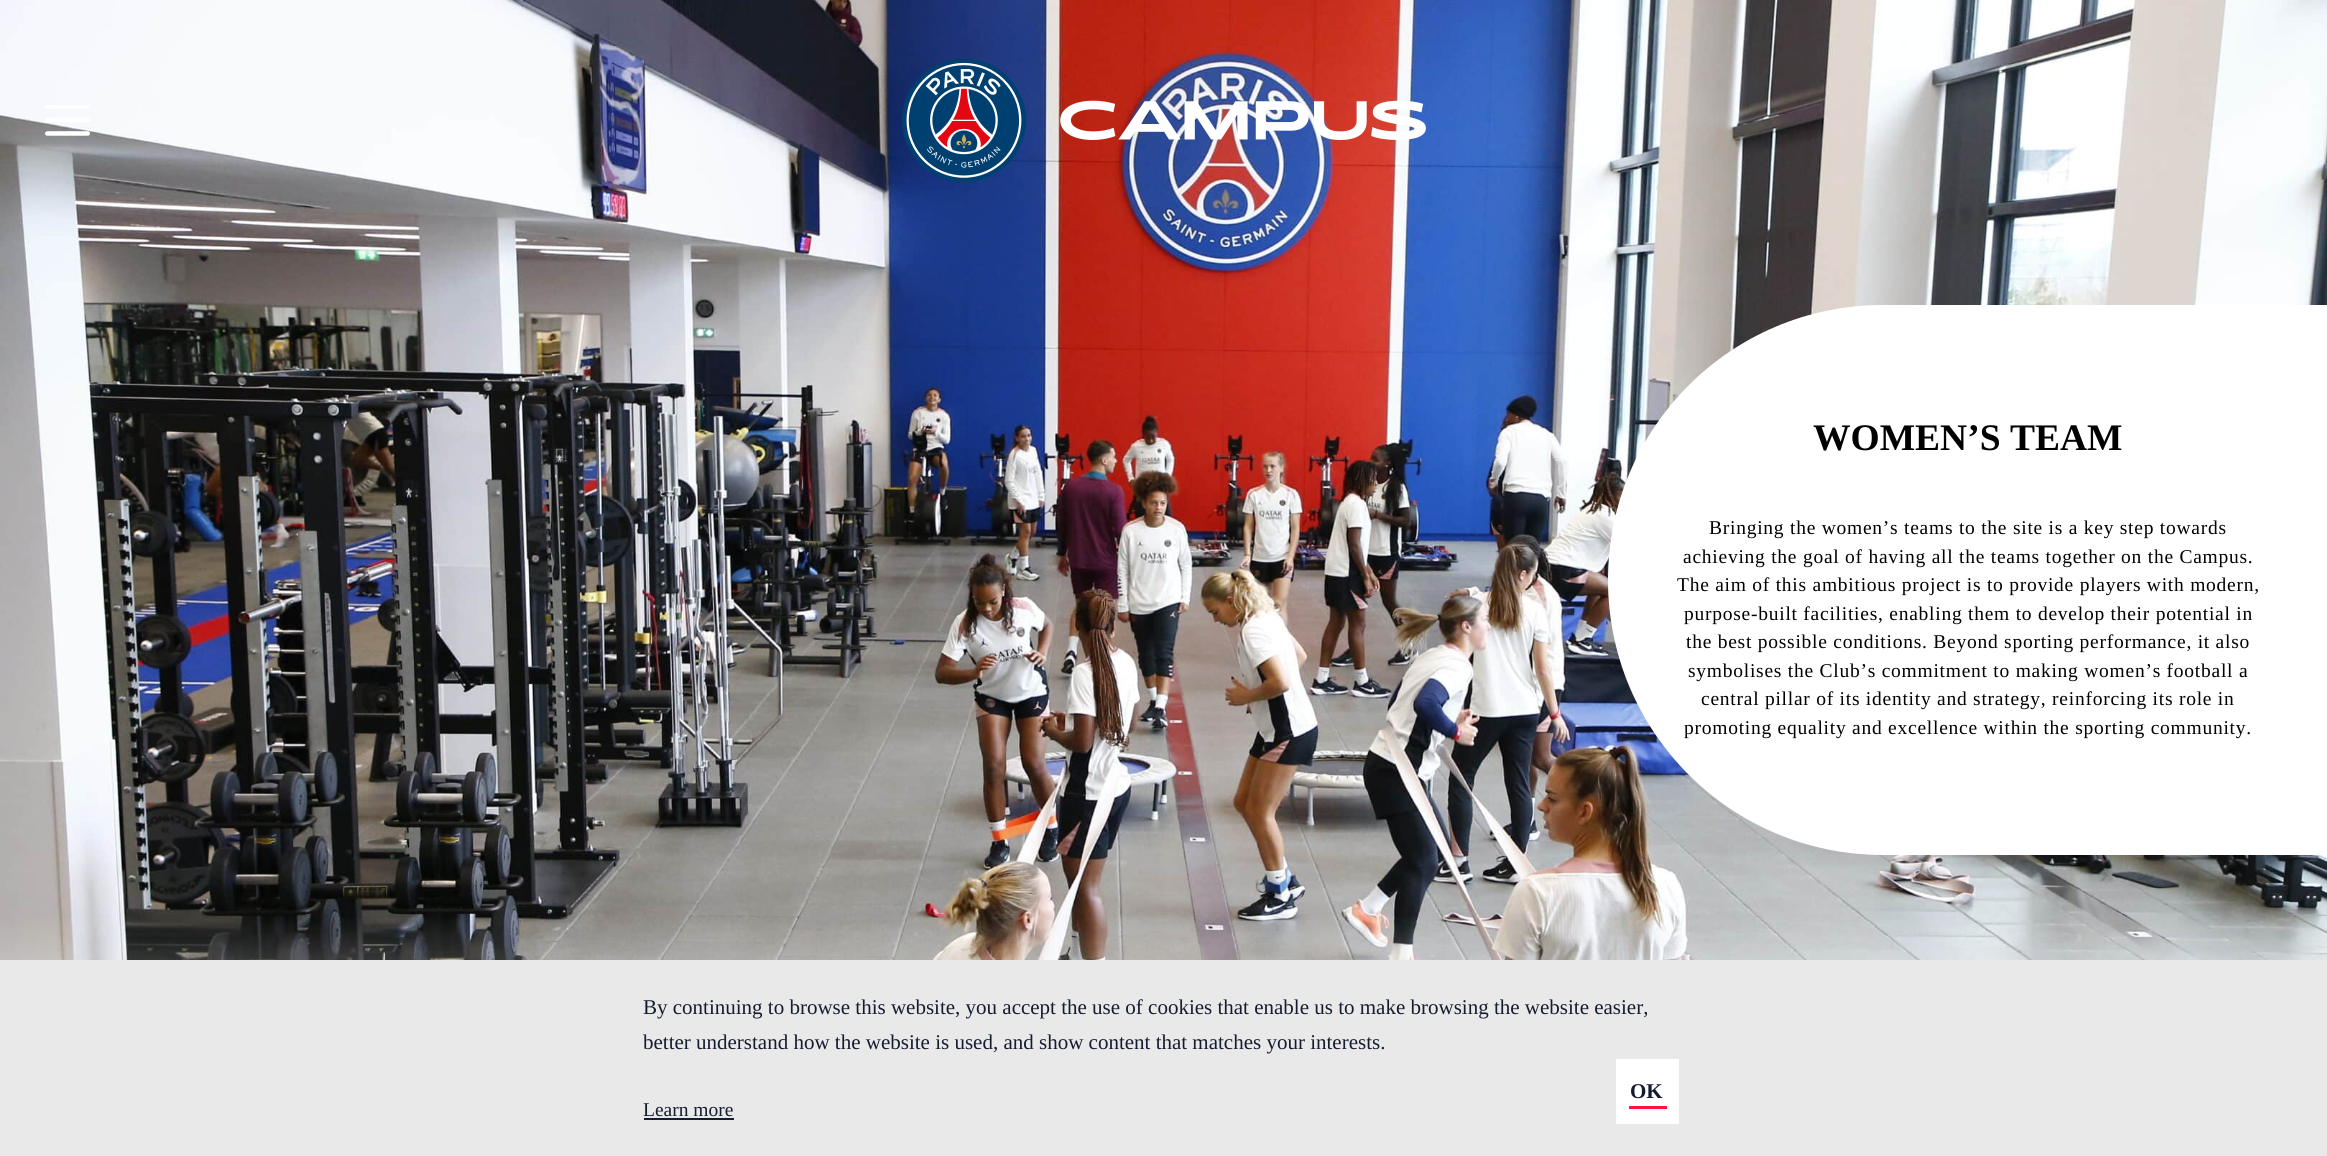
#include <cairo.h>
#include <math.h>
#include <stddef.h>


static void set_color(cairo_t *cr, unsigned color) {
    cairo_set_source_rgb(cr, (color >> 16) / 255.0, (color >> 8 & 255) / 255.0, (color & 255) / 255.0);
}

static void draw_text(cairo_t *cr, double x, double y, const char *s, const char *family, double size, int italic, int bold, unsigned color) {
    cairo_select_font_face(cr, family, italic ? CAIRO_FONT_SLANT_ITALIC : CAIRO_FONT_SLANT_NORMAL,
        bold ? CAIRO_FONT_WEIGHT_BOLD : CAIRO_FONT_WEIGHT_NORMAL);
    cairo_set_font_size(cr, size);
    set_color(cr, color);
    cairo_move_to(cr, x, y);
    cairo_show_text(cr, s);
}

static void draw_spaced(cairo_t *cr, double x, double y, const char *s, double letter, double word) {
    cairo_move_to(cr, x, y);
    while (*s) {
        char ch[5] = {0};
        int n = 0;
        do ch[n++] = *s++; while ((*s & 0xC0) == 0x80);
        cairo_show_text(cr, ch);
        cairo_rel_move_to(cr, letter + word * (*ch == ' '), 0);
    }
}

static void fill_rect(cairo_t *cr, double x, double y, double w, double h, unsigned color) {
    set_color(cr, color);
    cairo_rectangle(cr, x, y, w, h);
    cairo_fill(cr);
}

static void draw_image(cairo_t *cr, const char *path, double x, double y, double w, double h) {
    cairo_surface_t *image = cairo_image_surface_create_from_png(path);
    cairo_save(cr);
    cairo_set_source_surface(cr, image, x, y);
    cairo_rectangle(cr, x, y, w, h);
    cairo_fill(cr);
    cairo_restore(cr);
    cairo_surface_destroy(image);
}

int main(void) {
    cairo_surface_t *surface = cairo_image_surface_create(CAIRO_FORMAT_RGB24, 2327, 1156);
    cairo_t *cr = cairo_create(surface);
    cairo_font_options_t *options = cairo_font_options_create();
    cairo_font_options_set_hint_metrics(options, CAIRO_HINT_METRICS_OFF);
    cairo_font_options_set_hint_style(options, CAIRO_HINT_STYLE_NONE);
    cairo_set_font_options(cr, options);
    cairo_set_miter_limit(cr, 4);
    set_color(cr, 0xFFFFFF);
    cairo_paint(cr);
    draw_image(cr, "assets/img3.png", 0, 0, 2327, 960);
    draw_image(cr, "assets/img1.png", 45, 105, 45, 31);
    draw_image(cr, "assets/img2.png", 902, 59, 524, 123);
    set_color(cr, 0xFFFFFF);
    cairo_new_path(cr);
    cairo_move_to(cr, 1883, 305);
    cairo_line_to(cr, 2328, 305);
    cairo_line_to(cr, 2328, 855);
    cairo_line_to(cr, 1883, 855);
    cairo_curve_to(cr, 1731, 855, 1608, 732, 1608, 580);
    cairo_curve_to(cr, 1608, 428, 1731, 305, 1883, 305);
    cairo_close_path(cr);
    cairo_fill(cr);
    draw_text(cr, 1813, 450, "WOMEN’S TEAM", "Liberation Serif", 37.5, 0, 1, 0x000000);
    cairo_select_font_face(cr, "Liberation Serif", CAIRO_FONT_SLANT_NORMAL, CAIRO_FONT_WEIGHT_NORMAL);
    cairo_set_font_size(cr, 19.5);
    draw_spaced(cr, 1709, 534, "Bringing the women’s teams to the site is a key step towards", 0.75, 0);
    draw_spaced(cr, 1683, 563, "achieving the goal of having all the teams together on the Campus.", 0.75, 0);
    draw_spaced(cr, 1677, 591, "The aim of this ambitious project is to provide players with modern,", 0.75, 0);
    draw_spaced(cr, 1684, 620, "purpose-built facilities, enabling them to develop their potential in", 0.75, 0);
    draw_spaced(cr, 1686, 648, "the best possible conditions. Beyond sporting performance, it also", 0.75, 0);
    draw_spaced(cr, 1688, 677, "symbolises the Club’s commitment to making women’s football a", 0.75, 0);
    draw_spaced(cr, 1701, 705, "central pillar of its identity and strategy, reinforcing its role in", 0.75, 0);
    draw_spaced(cr, 1684, 734, "promoting equality and excellence within the sporting community.", 0.75, 0);
    fill_rect(cr, 0, 960, 2327, 196, 0xE9E9E9);
    draw_text(cr, 643, 1014, "By continuing to browse this website, you accept the use of cookies that enable us to make browsing the website easier,", "Liberation Serif", 21, 0, 0, 0x151C30);
    draw_text(cr, 643, 1049, "better understand how the website is used, and show content that matches your interests.", "Liberation Serif", 21, 0, 0, 0x151C30);
    fill_rect(cr, 1616, 1059, 63, 65, 0xFFFFFF);
    draw_text(cr, 1630, 1098, "OK", "Liberation Serif", 21, 0, 1, 0x151C30);
    fill_rect(cr, 1629, 1106, 38, 3, 0xFE153C);
    draw_text(cr, 643, 1116, "Learn more", "Liberation Serif", 19.5, 0, 0, 0x151C30);
    fill_rect(cr, 644, 1118, 90, 2, 0x151C30);
    cairo_surface_write_to_png(surface, "output.png");
    cairo_font_options_destroy(options);
    cairo_destroy(cr);
    cairo_surface_destroy(surface);
    return 0;
}
